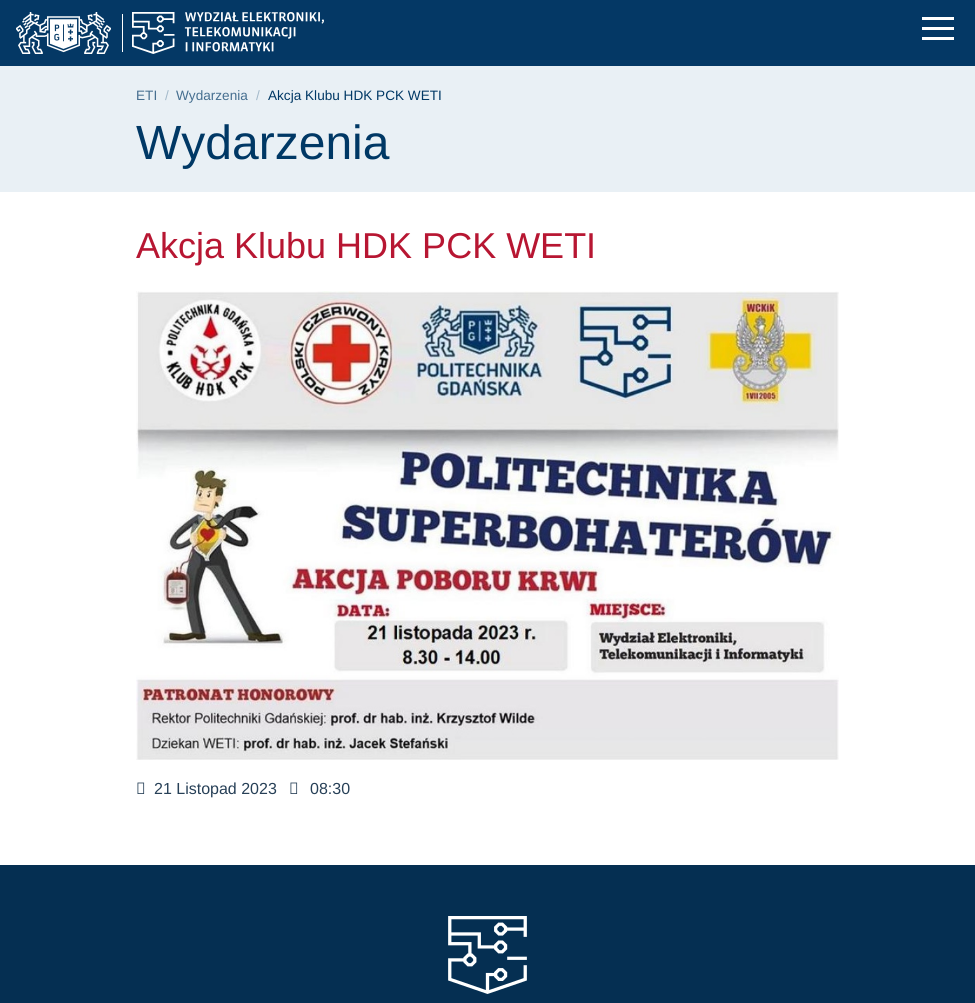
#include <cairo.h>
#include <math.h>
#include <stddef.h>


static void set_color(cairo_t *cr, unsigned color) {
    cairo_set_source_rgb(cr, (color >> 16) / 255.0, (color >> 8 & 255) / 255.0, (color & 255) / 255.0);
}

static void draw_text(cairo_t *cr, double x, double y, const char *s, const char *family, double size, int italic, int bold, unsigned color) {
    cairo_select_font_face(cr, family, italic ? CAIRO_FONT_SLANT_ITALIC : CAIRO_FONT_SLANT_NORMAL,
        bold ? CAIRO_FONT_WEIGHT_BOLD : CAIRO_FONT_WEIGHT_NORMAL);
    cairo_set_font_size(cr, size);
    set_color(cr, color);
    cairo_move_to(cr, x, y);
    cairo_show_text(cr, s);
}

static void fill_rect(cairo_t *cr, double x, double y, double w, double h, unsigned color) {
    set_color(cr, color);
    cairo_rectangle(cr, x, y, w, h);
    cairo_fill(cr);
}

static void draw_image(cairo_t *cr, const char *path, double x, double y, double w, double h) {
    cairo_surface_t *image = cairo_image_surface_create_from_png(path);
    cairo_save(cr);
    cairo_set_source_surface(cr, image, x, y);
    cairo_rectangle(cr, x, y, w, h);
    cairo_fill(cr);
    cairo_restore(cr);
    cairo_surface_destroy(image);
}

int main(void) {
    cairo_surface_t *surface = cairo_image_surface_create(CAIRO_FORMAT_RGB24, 975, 1003);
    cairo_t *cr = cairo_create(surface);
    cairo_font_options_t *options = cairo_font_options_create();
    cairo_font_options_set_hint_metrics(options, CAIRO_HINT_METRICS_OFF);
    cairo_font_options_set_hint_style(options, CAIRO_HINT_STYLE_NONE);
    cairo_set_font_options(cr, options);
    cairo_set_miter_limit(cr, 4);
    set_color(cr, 0xFFFFFF);
    cairo_paint(cr);
    fill_rect(cr, 0, 0, 975, 66, 0x043865);
    draw_image(cr, "assets/img1.png", 16, 12, 95, 42);
    fill_rect(cr, 122, 14, 1, 38, 0xFFFFFF);
    draw_image(cr, "assets/img2.png", 132, 12, 192, 42);
    fill_rect(cr, 922, 37, 32, 3, 0xFFFFFF);
    fill_rect(cr, 922, 17, 32, 3, 0xFFFFFF);
    fill_rect(cr, 922, 27, 32, 3, 0xFFFFFF);
    fill_rect(cr, 0, 66, 975, 126, 0xE9F0F5);
    draw_text(cr, 136, 100, "ETI", "Liberation Sans", 13.6, 0, 0, 0x466F90);
    draw_text(cr, 165, 100, "/", "Liberation Sans", 13.6, 0, 0, 0xA3B9CA);
    draw_text(cr, 176, 100, "Wydarzenia", "Liberation Sans", 13.6, 0, 0, 0x466F90);
    draw_text(cr, 256, 100, "/", "Liberation Sans", 13.6, 0, 0, 0xA3B9CA);
    draw_text(cr, 268, 100, "Akcja Klubu HDK PCK WETI", "Liberation Sans", 13.6, 0, 0, 0x003865);
    draw_text(cr, 136, 159, "Wydarzenia", "Liberation Sans", 48, 0, 0, 0x003865);
    draw_text(cr, 136, 258, "Akcja Klubu HDK PCK WETI", "Liberation Sans", 36, 0, 0, 0xB71632);
    draw_image(cr, "assets/img3.png", 136, 291, 703, 469);
    draw_image(cr, "assets/img4.png", 137, 782, 8, 12);
    draw_text(cr, 154, 794, "21 Listopad 2023", "Liberation Sans", 16, 0, 0, 0x274057);
    draw_image(cr, "assets/img4.png", 290, 782, 8, 12);
    draw_text(cr, 310, 794, "08:30", "Liberation Sans", 16, 0, 0, 0x274057);
    fill_rect(cr, 0, 865, 975, 138, 0x052F52);
    draw_image(cr, "assets/img5.png", 448, 916, 79, 78);
    cairo_surface_write_to_png(surface, "output.png");
    cairo_font_options_destroy(options);
    cairo_destroy(cr);
    cairo_surface_destroy(surface);
    return 0;
}
